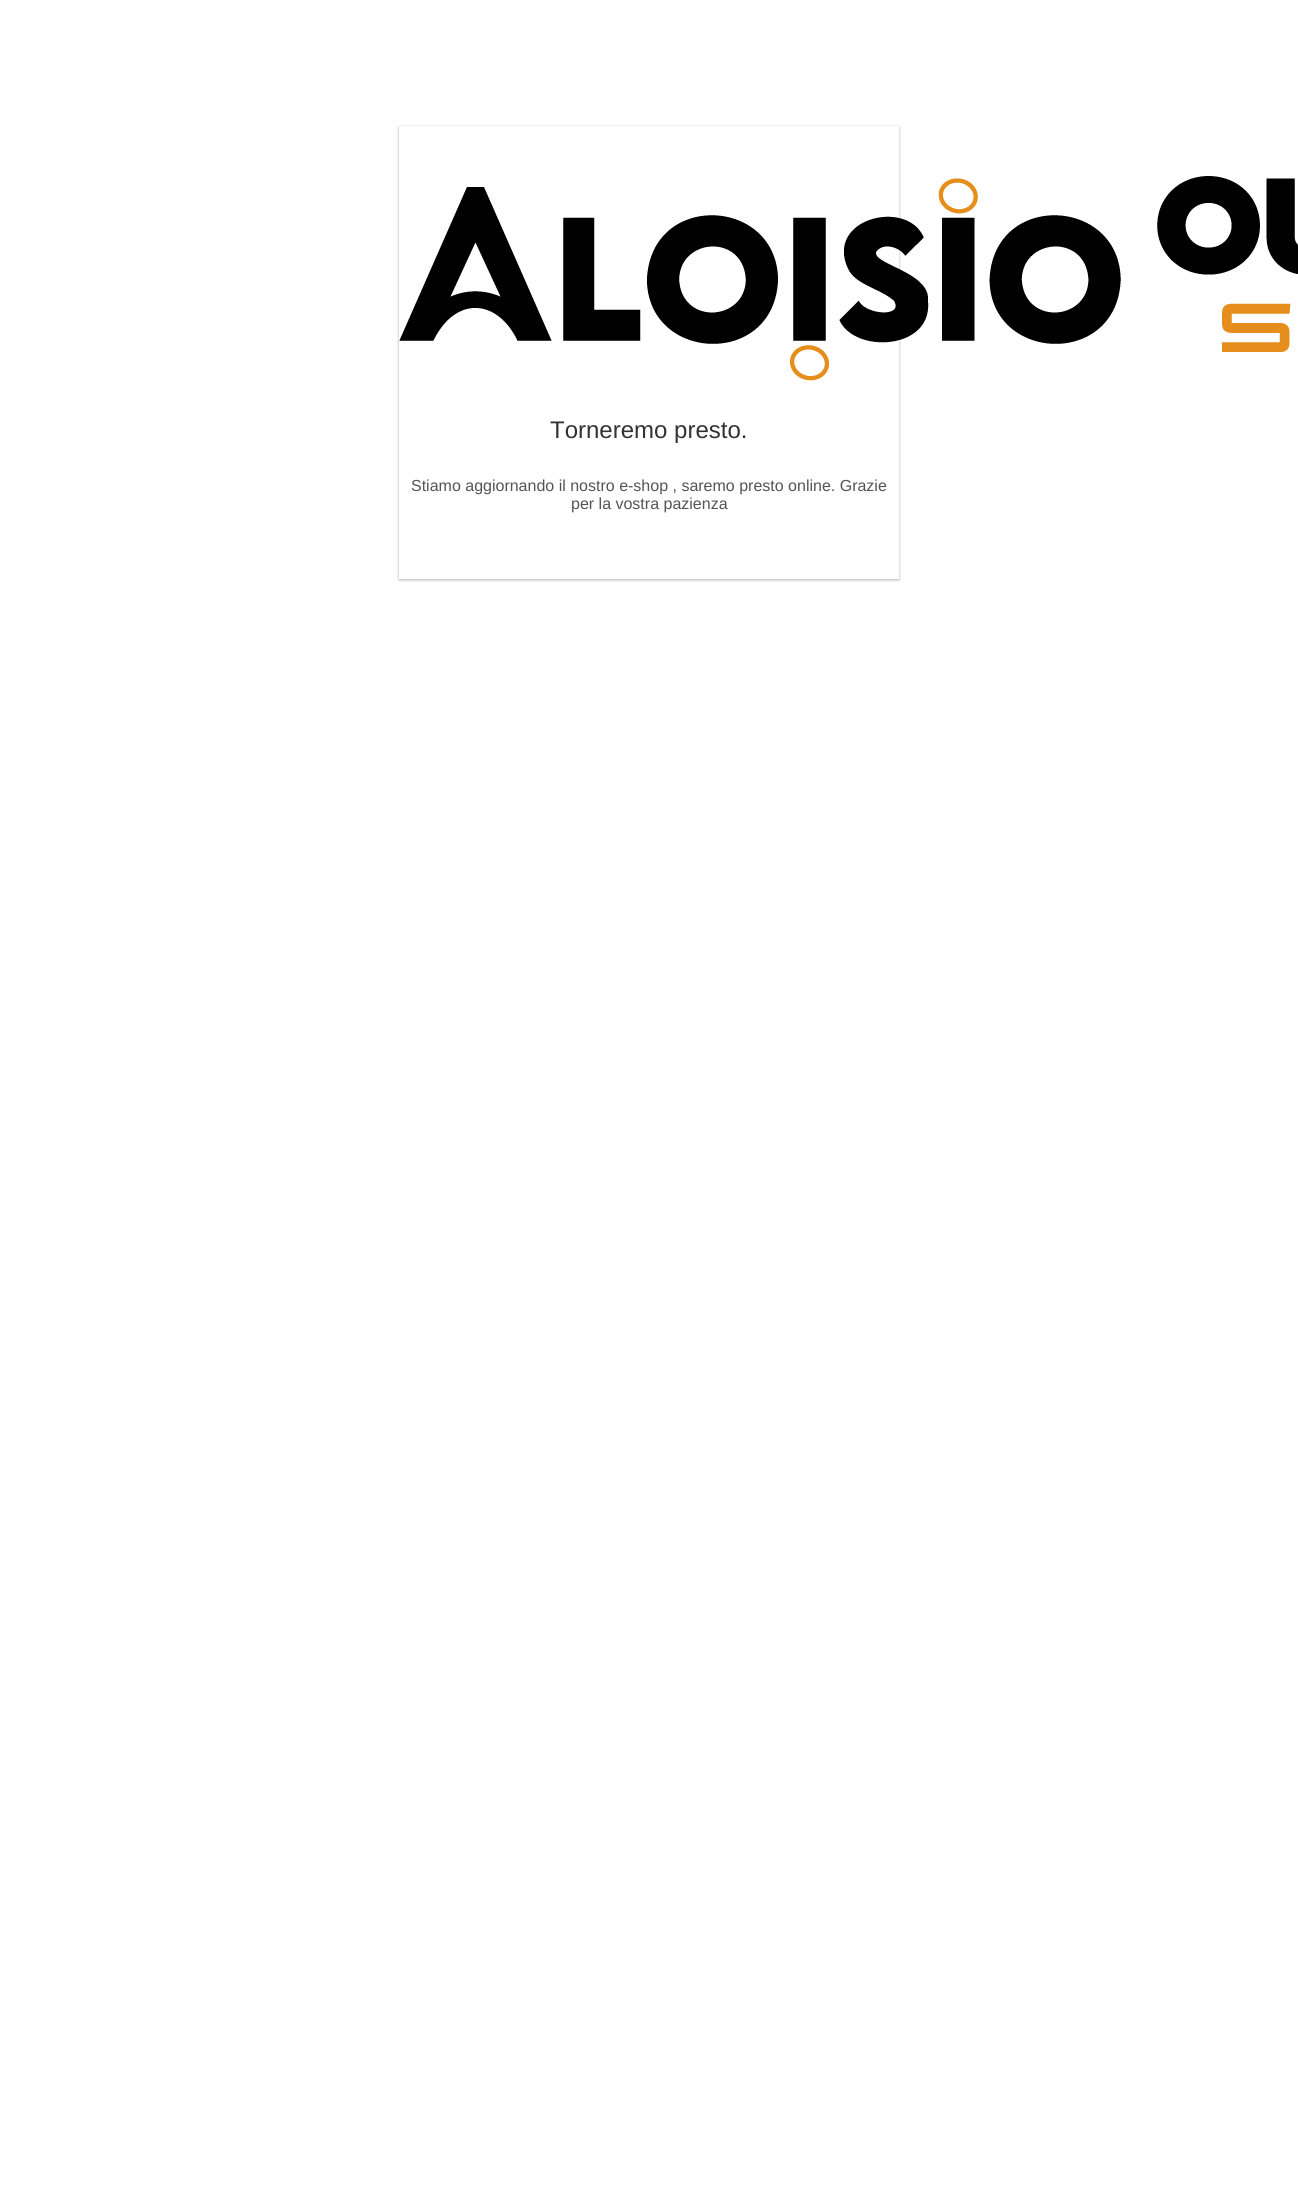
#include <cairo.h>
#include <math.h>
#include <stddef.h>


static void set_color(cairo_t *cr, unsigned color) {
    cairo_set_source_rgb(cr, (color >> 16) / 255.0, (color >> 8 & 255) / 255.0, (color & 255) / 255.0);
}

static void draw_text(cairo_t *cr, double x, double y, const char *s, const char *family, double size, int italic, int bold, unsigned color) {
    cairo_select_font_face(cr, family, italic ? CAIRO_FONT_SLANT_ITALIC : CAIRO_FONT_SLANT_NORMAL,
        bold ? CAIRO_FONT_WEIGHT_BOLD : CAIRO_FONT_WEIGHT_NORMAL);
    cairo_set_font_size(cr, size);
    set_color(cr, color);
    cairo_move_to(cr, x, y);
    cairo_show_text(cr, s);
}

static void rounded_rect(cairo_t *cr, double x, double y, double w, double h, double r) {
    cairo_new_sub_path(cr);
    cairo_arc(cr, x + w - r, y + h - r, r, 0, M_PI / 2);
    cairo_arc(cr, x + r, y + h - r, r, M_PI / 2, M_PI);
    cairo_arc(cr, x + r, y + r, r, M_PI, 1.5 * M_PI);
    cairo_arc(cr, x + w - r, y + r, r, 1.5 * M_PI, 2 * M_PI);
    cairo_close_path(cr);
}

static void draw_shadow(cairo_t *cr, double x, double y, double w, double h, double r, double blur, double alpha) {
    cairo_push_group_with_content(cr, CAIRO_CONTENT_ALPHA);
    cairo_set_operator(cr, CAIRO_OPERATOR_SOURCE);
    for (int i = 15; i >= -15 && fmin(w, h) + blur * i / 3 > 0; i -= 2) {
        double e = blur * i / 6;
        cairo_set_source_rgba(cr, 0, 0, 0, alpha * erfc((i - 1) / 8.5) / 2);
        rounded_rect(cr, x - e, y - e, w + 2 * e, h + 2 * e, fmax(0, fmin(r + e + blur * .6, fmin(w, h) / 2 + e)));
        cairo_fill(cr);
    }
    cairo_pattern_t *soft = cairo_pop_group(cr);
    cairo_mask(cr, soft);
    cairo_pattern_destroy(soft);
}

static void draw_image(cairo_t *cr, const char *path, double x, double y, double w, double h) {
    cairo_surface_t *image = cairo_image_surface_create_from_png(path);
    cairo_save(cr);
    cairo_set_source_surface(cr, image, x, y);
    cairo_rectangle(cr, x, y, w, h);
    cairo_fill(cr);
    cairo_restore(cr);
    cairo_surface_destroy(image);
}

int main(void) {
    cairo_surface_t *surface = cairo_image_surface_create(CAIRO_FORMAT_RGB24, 1298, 2200);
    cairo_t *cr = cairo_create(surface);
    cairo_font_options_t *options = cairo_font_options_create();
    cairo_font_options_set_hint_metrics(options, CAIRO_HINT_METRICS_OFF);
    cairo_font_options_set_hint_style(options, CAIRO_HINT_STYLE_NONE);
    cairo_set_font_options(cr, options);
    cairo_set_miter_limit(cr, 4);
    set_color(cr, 0xFFFFFF);
    cairo_paint(cr);
    cairo_save(cr);
    cairo_set_fill_rule(cr, CAIRO_FILL_RULE_EVEN_ODD);
    cairo_new_path(cr);
    cairo_move_to(cr, 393, 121);
    cairo_line_to(cr, 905, 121);
    cairo_line_to(cr, 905, 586);
    cairo_line_to(cr, 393, 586);
    cairo_close_path(cr);
    cairo_move_to(cr, 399, 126);
    cairo_line_to(cr, 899, 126);
    cairo_line_to(cr, 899, 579);
    cairo_line_to(cr, 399, 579);
    cairo_close_path(cr);
    cairo_clip(cr);
    set_color(cr, 0x000000);
    draw_shadow(cr, 399, 127, 500, 453, 0, 1.5, 0.3);
    cairo_restore(cr);
    draw_image(cr, "assets/img1.png", 399, 176, 899, 205);
    draw_text(cr, 550, 438, "Torneremo presto.", "Liberation Sans", 24, 0, 0, 0x333333);
    draw_text(cr, 411, 491, "Stiamo aggiornando il nostro e-shop , saremo presto online. Grazie", "Liberation Sans", 16, 0, 0, 0x555454);
    draw_text(cr, 571, 509, "per la vostra pazienza", "Liberation Sans", 16, 0, 0, 0x555454);
    cairo_surface_write_to_png(surface, "output.png");
    cairo_font_options_destroy(options);
    cairo_destroy(cr);
    cairo_surface_destroy(surface);
    return 0;
}
